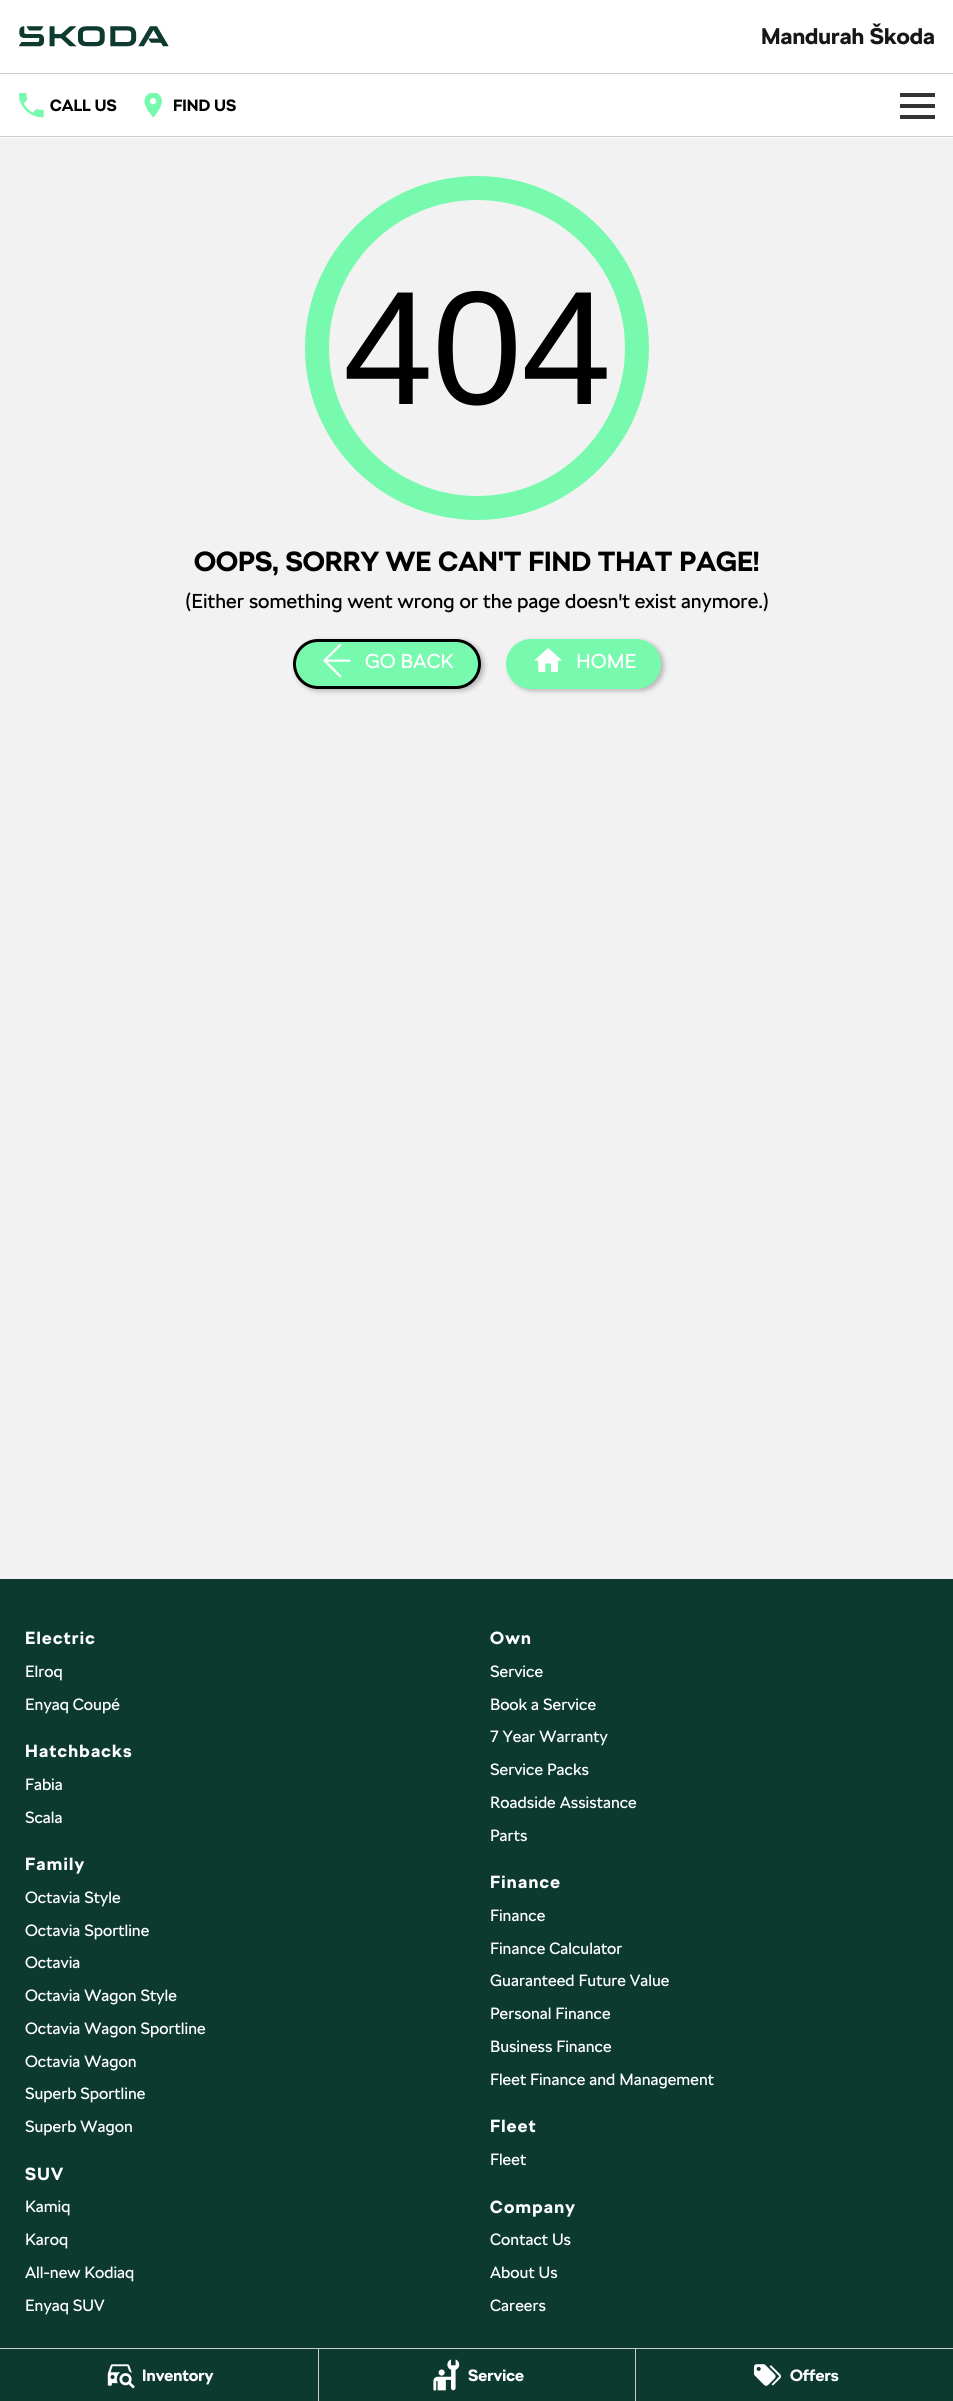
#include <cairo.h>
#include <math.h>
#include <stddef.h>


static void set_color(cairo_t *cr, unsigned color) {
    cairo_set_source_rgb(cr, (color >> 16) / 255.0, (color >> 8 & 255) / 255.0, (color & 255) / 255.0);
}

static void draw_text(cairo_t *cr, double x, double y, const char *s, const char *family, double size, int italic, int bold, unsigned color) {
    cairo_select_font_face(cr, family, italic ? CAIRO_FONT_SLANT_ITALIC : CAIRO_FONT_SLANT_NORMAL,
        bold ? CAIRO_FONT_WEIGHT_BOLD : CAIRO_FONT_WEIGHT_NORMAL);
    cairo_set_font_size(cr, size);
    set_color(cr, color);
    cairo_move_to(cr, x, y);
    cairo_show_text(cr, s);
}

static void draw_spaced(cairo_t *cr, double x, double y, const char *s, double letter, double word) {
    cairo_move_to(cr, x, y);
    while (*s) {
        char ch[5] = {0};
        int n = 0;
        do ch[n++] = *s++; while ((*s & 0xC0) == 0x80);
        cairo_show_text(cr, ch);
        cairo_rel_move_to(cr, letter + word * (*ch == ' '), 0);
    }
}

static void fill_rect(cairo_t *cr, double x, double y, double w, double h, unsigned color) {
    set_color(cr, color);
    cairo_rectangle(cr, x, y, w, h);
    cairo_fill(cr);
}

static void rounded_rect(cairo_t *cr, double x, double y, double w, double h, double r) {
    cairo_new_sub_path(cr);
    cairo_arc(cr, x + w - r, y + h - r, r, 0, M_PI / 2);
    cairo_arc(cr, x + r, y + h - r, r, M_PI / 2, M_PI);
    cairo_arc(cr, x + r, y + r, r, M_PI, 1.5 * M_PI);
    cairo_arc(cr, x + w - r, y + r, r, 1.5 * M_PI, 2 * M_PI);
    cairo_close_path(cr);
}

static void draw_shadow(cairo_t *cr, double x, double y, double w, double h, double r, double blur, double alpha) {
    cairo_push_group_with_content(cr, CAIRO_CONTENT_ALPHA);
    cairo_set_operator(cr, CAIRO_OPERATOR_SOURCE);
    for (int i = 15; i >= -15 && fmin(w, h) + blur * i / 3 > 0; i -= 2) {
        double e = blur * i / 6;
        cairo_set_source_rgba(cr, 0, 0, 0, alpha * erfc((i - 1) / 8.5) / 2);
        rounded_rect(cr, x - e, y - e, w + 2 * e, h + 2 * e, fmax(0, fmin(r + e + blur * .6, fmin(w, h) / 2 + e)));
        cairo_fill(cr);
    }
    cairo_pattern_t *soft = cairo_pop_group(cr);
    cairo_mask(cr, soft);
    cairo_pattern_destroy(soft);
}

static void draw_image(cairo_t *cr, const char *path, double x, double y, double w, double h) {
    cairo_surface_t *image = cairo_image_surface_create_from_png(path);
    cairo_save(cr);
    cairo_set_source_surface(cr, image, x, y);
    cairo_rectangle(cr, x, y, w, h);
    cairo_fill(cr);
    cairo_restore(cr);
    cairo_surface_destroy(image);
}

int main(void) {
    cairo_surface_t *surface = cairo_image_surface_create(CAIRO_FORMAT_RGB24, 953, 2401);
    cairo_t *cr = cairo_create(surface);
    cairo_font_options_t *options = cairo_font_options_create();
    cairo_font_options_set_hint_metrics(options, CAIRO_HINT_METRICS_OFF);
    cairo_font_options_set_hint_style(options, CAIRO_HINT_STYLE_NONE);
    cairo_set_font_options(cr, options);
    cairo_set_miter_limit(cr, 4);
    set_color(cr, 0xFFFFFF);
    cairo_paint(cr);
    fill_rect(cr, 0, 73, 953, 1, 0xCCCCCC);
    draw_image(cr, "assets/img1.png", 19, 26, 150, 21);
    draw_text(cr, 761, 44, "Mandurah Škoda", "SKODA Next", 22.5, 0, 1, 0x161718);
    fill_rect(cr, 0, 136, 953, 1, 0xCCCCCC);
    draw_image(cr, "assets/img2.png", 19, 93, 25, 25);
    draw_text(cr, 50, 111, "CALL US", "SKODA Next", 16.25, 0, 1, 0x000000);
    draw_image(cr, "assets/img3.png", 144, 93, 18, 25);
    draw_text(cr, 173, 111, "FIND US", "SKODA Next", 16.25, 0, 1, 0x000000);
    fill_rect(cr, 900, 93, 35, 4, 0x333333);
    fill_rect(cr, 900, 104, 35, 4, 0x333333);
    fill_rect(cr, 900, 115, 35, 4, 0x333333);
    fill_rect(cr, 0, 138, 953, 1441, 0xF2F2F2);
    cairo_select_font_face(cr, "Liberation Sans", CAIRO_FONT_SLANT_NORMAL, CAIRO_FONT_WEIGHT_NORMAL);
    cairo_set_font_size(cr, 162);
    set_color(cr, 0x000000);
    draw_spaced(cr, 343, 404, "404", -1, 0);
    cairo_new_path(cr);
    cairo_arc(cr, 477, 348, 160, 0, 2 * M_PI);
    set_color(cr, 0x78FAAE);
    cairo_set_line_width(cr, 24);
    cairo_stroke(cr);
    draw_text(cr, 194, 571, "OOPS, SORRY WE CAN'T FIND THAT PAGE!", "SKODA Next", 27.5, 0, 1, 0x000000);
    draw_text(cr, 185, 608, "(Either something went wrong or the page doesn't exist anymore.)", "SKODA Next", 20, 0, 0, 0x000000);
    set_color(cr, 0x000000);
    draw_shadow(cr, 295, 641, 189, 50, 25, 2.5, 0.25);
    set_color(cr, 0x78FAAE);
    rounded_rect(cr, 294.5, 640.5, 185, 47, 23.5);
    cairo_fill_preserve(cr);
    set_color(cr, 0x000000);
    cairo_set_line_width(cr, 3);
    cairo_stroke(cr);
    draw_image(cr, "assets/img4.png", 323, 644, 28, 34);
    draw_text(cr, 365, 668, "GO BACK", "SKODA Next", 20, 0, 0, 0xFFFFFF);
    set_color(cr, 0x000000);
    draw_shadow(cr, 509, 641, 155, 50, 25, 2.5, 0.25);
    set_color(cr, 0x78FAAE);
    rounded_rect(cr, 506, 639, 155, 50, 25);
    cairo_fill(cr);
    draw_image(cr, "assets/img5.png", 534, 648, 28, 24);
    draw_text(cr, 576, 668, "HOME", "SKODA Next", 20, 0, 0, 0xFFFFFF);
    fill_rect(cr, 0, 1579, 953, 822, 0x0D3A2F);
    cairo_select_font_face(cr, "SKODA Next", CAIRO_FONT_SLANT_NORMAL, CAIRO_FONT_WEIGHT_BOLD);
    cairo_set_font_size(cr, 17.5);
    set_color(cr, 0xFFFFFF);
    draw_spaced(cr, 25, 1644, "Electric", 1.25, 0);
    draw_text(cr, 25, 1677, "Elroq", "SKODA Next", 16.25, 0, 0, 0xFFFFFF);
    draw_text(cr, 25, 1710, "Enyaq Coupé", "SKODA Next", 16.25, 0, 0, 0xFFFFFF);
    cairo_select_font_face(cr, "SKODA Next", CAIRO_FONT_SLANT_NORMAL, CAIRO_FONT_WEIGHT_BOLD);
    cairo_set_font_size(cr, 17.5);
    draw_spaced(cr, 490, 1644, "Own", 1.25, 0);
    draw_text(cr, 490, 1677, "Service", "SKODA Next", 16.25, 0, 0, 0xFFFFFF);
    draw_text(cr, 490, 1710, "Book a Service", "SKODA Next", 16.25, 0, 0, 0xFFFFFF);
    draw_text(cr, 490, 1742, "7 Year Warranty", "SKODA Next", 16.25, 0, 0, 0xFFFFFF);
    draw_text(cr, 490, 1775, "Service Packs", "SKODA Next", 16.25, 0, 0, 0xFFFFFF);
    draw_text(cr, 490, 1808, "Roadside Assistance", "SKODA Next", 16.25, 0, 0, 0xFFFFFF);
    draw_text(cr, 490, 1841, "Parts", "SKODA Next", 16.25, 0, 0, 0xFFFFFF);
    cairo_select_font_face(cr, "SKODA Next", CAIRO_FONT_SLANT_NORMAL, CAIRO_FONT_WEIGHT_BOLD);
    cairo_set_font_size(cr, 17.5);
    draw_spaced(cr, 25, 1757, "Hatchbacks", 1.25, 0);
    draw_text(cr, 25, 1790, "Fabia", "SKODA Next", 16.25, 0, 0, 0xFFFFFF);
    draw_text(cr, 25, 1823, "Scala", "SKODA Next", 16.25, 0, 0, 0xFFFFFF);
    cairo_select_font_face(cr, "SKODA Next", CAIRO_FONT_SLANT_NORMAL, CAIRO_FONT_WEIGHT_BOLD);
    cairo_set_font_size(cr, 17.5);
    draw_spaced(cr, 25, 1870, "Family", 1.25, 0);
    draw_text(cr, 25, 1903, "Octavia Style", "SKODA Next", 16.25, 0, 0, 0xFFFFFF);
    draw_text(cr, 25, 1936, "Octavia Sportline", "SKODA Next", 16.25, 0, 0, 0xFFFFFF);
    draw_text(cr, 25, 1968, "Octavia", "SKODA Next", 16.25, 0, 0, 0xFFFFFF);
    draw_text(cr, 25, 2001, "Octavia Wagon Style", "SKODA Next", 16.25, 0, 0, 0xFFFFFF);
    draw_text(cr, 25, 2034, "Octavia Wagon Sportline", "SKODA Next", 16.25, 0, 0, 0xFFFFFF);
    draw_text(cr, 25, 2067, "Octavia Wagon", "SKODA Next", 16.25, 0, 0, 0xFFFFFF);
    draw_text(cr, 25, 2099, "Superb Sportline", "SKODA Next", 16.25, 0, 0, 0xFFFFFF);
    draw_text(cr, 25, 2132, "Superb Wagon", "SKODA Next", 16.25, 0, 0, 0xFFFFFF);
    cairo_select_font_face(cr, "SKODA Next", CAIRO_FONT_SLANT_NORMAL, CAIRO_FONT_WEIGHT_BOLD);
    cairo_set_font_size(cr, 17.5);
    draw_spaced(cr, 490, 1888, "Finance", 1.25, 0);
    draw_text(cr, 490, 1921, "Finance", "SKODA Next", 16.25, 0, 0, 0xFFFFFF);
    draw_text(cr, 490, 1954, "Finance Calculator", "SKODA Next", 16.25, 0, 0, 0xFFFFFF);
    draw_text(cr, 490, 1986, "Guaranteed Future Value", "SKODA Next", 16.25, 0, 0, 0xFFFFFF);
    draw_text(cr, 490, 2019, "Personal Finance", "SKODA Next", 16.25, 0, 0, 0xFFFFFF);
    draw_text(cr, 490, 2052, "Business Finance", "SKODA Next", 16.25, 0, 0, 0xFFFFFF);
    draw_text(cr, 490, 2085, "Fleet Finance and Management", "SKODA Next", 16.25, 0, 0, 0xFFFFFF);
    cairo_select_font_face(cr, "SKODA Next", CAIRO_FONT_SLANT_NORMAL, CAIRO_FONT_WEIGHT_BOLD);
    cairo_set_font_size(cr, 17.5);
    draw_spaced(cr, 490, 2132, "Fleet", 1.25, 0);
    draw_text(cr, 490, 2165, "Fleet", "SKODA Next", 16.25, 0, 0, 0xFFFFFF);
    cairo_select_font_face(cr, "SKODA Next", CAIRO_FONT_SLANT_NORMAL, CAIRO_FONT_WEIGHT_BOLD);
    cairo_set_font_size(cr, 17.5);
    draw_spaced(cr, 25, 2180, "SUV", 1.25, 0);
    draw_text(cr, 25, 2212, "Kamiq", "SKODA Next", 16.25, 0, 0, 0xFFFFFF);
    draw_text(cr, 25, 2245, "Karoq", "SKODA Next", 16.25, 0, 0, 0xFFFFFF);
    draw_text(cr, 25, 2278, "All-new Kodiaq", "SKODA Next", 16.25, 0, 0, 0xFFFFFF);
    draw_text(cr, 25, 2311, "Enyaq SUV", "SKODA Next", 16.25, 0, 0, 0xFFFFFF);
    cairo_select_font_face(cr, "SKODA Next", CAIRO_FONT_SLANT_NORMAL, CAIRO_FONT_WEIGHT_BOLD);
    cairo_set_font_size(cr, 17.5);
    draw_spaced(cr, 490, 2213, "Company", 1.25, 0);
    draw_text(cr, 490, 2245, "Contact Us", "SKODA Next", 16.25, 0, 0, 0xFFFFFF);
    draw_text(cr, 490, 2278, "About Us", "SKODA Next", 16.25, 0, 0, 0xFFFFFF);
    draw_text(cr, 490, 2311, "Careers", "SKODA Next", 16.25, 0, 0, 0xFFFFFF);
    fill_rect(cr, 0, 2348, 953, 1, 0xCCCCCC);
    fill_rect(cr, 318, 2349, 1, 52, 0xCCCCCC);
    draw_image(cr, "assets/img6.png", 107, 2364, 28, 25);
    draw_text(cr, 142, 2381, "Inventory", "SKODA Next", 16.25, 0, 1, 0xFFFFFF);
    fill_rect(cr, 635, 2349, 1, 52, 0xCCCCCC);
    draw_image(cr, "assets/img7.png", 433, 2359, 27, 32);
    draw_text(cr, 468, 2381, "Service", "SKODA Next", 16.25, 0, 1, 0xFFFFFF);
    draw_image(cr, "assets/img8.png", 753, 2364, 28, 22);
    draw_text(cr, 790, 2381, "Offers", "SKODA Next", 16.25, 0, 1, 0xFFFFFF);
    cairo_surface_write_to_png(surface, "output.png");
    cairo_font_options_destroy(options);
    cairo_destroy(cr);
    cairo_surface_destroy(surface);
    return 0;
}
